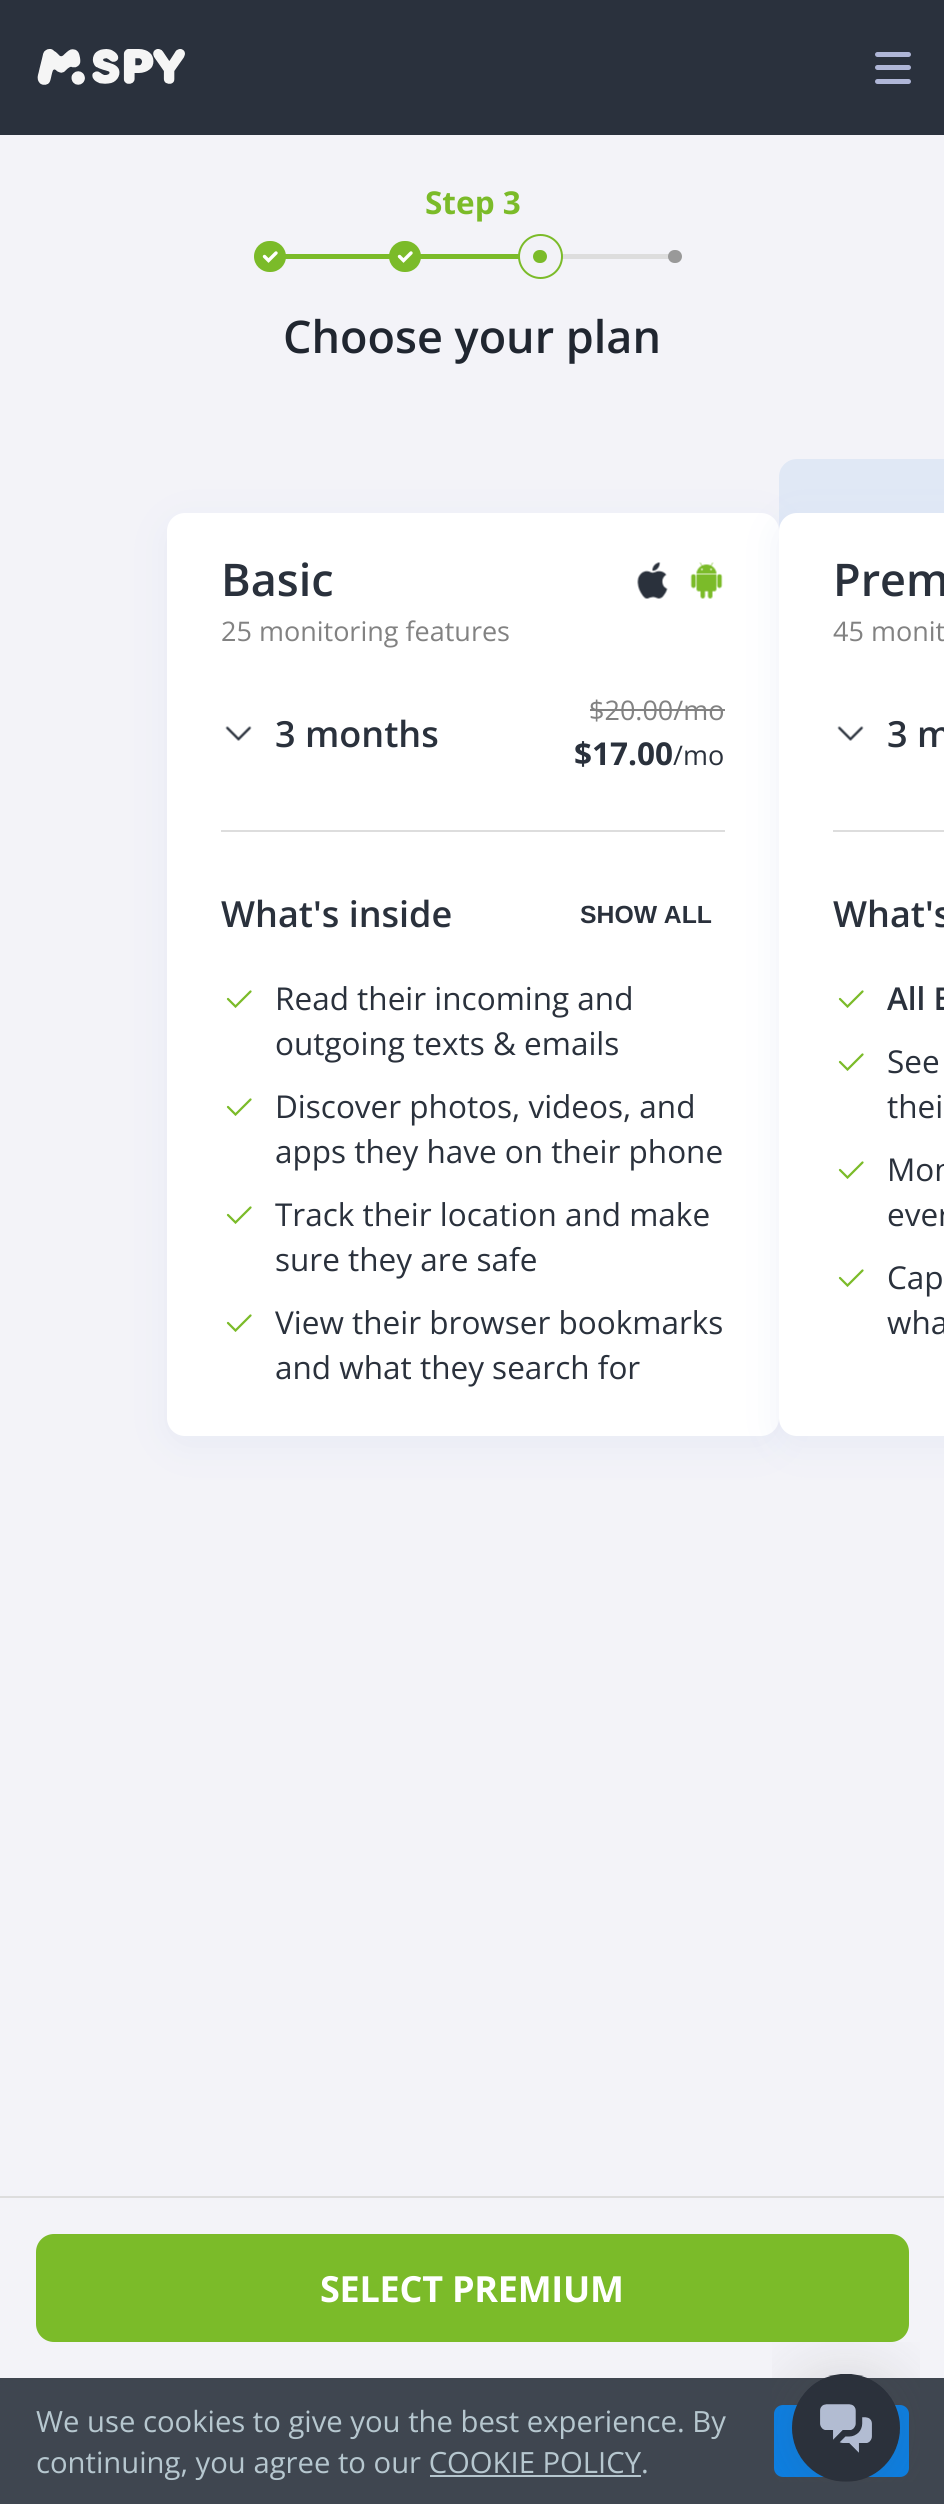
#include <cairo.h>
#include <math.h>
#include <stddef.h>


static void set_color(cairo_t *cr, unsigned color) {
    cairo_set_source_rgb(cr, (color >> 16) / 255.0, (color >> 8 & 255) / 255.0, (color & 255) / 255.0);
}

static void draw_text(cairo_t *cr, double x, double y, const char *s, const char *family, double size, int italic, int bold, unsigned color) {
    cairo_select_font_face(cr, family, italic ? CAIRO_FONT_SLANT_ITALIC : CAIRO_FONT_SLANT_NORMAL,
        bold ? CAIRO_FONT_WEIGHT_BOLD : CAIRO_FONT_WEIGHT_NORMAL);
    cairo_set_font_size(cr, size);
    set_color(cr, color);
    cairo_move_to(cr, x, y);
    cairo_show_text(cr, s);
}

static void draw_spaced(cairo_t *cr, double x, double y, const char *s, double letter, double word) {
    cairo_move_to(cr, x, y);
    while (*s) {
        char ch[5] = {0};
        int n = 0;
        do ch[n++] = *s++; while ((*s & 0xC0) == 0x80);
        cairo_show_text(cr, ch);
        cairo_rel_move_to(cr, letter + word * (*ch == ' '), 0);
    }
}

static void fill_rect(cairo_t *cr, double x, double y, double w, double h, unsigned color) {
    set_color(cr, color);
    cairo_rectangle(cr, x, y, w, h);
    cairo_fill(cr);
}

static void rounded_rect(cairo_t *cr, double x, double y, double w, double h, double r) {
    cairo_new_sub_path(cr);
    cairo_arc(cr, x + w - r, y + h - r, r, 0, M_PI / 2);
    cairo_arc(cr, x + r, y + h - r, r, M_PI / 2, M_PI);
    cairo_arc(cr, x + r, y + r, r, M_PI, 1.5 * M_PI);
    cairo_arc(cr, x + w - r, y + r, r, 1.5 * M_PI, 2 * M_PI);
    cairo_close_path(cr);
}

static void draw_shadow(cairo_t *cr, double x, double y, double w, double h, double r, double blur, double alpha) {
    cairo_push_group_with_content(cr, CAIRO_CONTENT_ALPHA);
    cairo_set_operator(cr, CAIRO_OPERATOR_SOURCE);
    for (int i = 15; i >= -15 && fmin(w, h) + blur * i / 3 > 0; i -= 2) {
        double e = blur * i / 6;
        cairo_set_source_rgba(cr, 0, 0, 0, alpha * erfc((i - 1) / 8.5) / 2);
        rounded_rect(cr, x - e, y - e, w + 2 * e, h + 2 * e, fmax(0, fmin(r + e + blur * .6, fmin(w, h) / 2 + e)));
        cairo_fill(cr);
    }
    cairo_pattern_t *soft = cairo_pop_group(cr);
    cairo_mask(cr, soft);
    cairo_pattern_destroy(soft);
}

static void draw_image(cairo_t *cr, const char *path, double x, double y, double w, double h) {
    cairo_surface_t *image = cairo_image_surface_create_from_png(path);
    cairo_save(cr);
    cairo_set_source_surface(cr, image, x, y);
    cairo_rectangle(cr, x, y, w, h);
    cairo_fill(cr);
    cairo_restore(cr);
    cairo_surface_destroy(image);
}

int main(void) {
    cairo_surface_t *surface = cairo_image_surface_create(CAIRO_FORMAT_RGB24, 944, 2504);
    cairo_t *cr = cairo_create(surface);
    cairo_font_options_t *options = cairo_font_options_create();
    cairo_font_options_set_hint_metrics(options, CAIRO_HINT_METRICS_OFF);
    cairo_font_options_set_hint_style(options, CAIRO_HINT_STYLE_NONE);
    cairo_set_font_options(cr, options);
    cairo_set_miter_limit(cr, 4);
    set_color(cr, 0xF3F3F8);
    cairo_paint(cr);
    fill_rect(cr, 0, 0, 944, 135, 0x2A313D);
    draw_image(cr, "assets/img1.png", 37, 49, 148, 36);
    set_color(cr, 0xAFB6D7);
    rounded_rect(cr, 875, 65, 36, 5, 2.5);
    cairo_fill(cr);
    rounded_rect(cr, 875, 52, 36, 5, 2.5);
    cairo_fill(cr);
    rounded_rect(cr, 875, 79, 36, 5, 2.5);
    cairo_fill(cr);
    draw_text(cr, 425, 214, "Step 3", "Open Sans", 31.5, 0, 1, 0x7BBB29);
    fill_rect(cr, 281, 254, 113, 5, 0x7BBB29);
    rounded_rect(cr, 254, 241, 32, 31, 15.5);
    cairo_fill(cr);
    cairo_new_path(cr);
    cairo_move_to(cr, 264.5, 256.5);
    cairo_line_to(cr, 268.5, 260.5);
    cairo_line_to(cr, 276, 253);
    set_color(cr, 0xFFFFFF);
    cairo_set_line_width(cr, 3.4);
    cairo_set_line_cap(cr, CAIRO_LINE_CAP_ROUND);
    cairo_stroke(cr);
    fill_rect(cr, 416, 254, 103, 5, 0x7BBB29);
    rounded_rect(cr, 389, 241, 32, 31, 15.5);
    cairo_fill(cr);
    cairo_new_path(cr);
    cairo_move_to(cr, 399.5, 256.5);
    cairo_line_to(cr, 403.5, 260.5);
    cairo_line_to(cr, 411, 253);
    set_color(cr, 0xFFFFFF);
    cairo_stroke(cr);
    fill_rect(cr, 562, 254, 113, 5, 0xDDDDDD);
    set_color(cr, 0xF2F2F7);
    cairo_arc(cr, 540.5, 256.5, 21.5, 0, 2 * M_PI);
    cairo_fill_preserve(cr);
    set_color(cr, 0x7BBB29);
    cairo_set_line_width(cr, 2);
    cairo_set_line_cap(cr, CAIRO_LINE_CAP_BUTT);
    cairo_stroke(cr);
    rounded_rect(cr, 533, 250, 14, 13, 6.5);
    cairo_fill(cr);
    set_color(cr, 0x999999);
    rounded_rect(cr, 668, 250, 14, 13, 6.5);
    cairo_fill(cr);
    draw_text(cr, 283, 353, "Choose your plan", "Open Sans SemiBold", 45, 0, 0, 0x202630);
    set_color(cr, 0xE0E8F5);
    cairo_new_path(cr);
    cairo_move_to(cr, 797, 459);
    cairo_line_to(cr, 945, 459);
    cairo_line_to(cr, 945, 531);
    cairo_line_to(cr, 779, 531);
    cairo_line_to(cr, 779, 477);
    cairo_curve_to(cr, 779, 467, 787, 459, 797, 459);
    cairo_close_path(cr);
    cairo_fill(cr);
    set_color(cr, 0xD7DEF1);
    draw_shadow(cr, 167, 522, 612, 923, 18, 18, 0.4);
    set_color(cr, 0xFFFFFF);
    rounded_rect(cr, 167, 513, 612, 923, 18);
    cairo_fill(cr);
    draw_text(cr, 221, 596, "Basic", "Open Sans SemiBold", 45, 0, 0, 0x2A313C);
    draw_image(cr, "assets/img2.png", 637, 562, 31, 37);
    draw_image(cr, "assets/img3.png", 690, 562, 33, 37);
    draw_text(cr, 221, 641, "25 monitoring features", "Open Sans", 27, 0, 0, 0x828282);
    draw_image(cr, "assets/img4.png", 225, 726, 27, 15);
    draw_text(cr, 275, 747, "3 months", "Open Sans SemiBold", 36, 0, 0, 0x2A313C);
    draw_text(cr, 589, 720, "$20.00/mo", "Open Sans", 27, 0, 0, 0x828282);
    fill_rect(cr, 590, 709, 135, 2, 0x828282);
    draw_text(cr, 574, 765, "$17.00", "Open Sans", 31.5, 0, 1, 0x2A313C);
    draw_text(cr, 673, 765, "/mo", "Open Sans", 27, 0, 0, 0x2A313C);
    fill_rect(cr, 221, 830, 504, 2, 0xDDDDDD);
    draw_text(cr, 221, 927, "What's inside", "Open Sans SemiBold", 36, 0, 0, 0x2A313C);
    draw_text(cr, 580, 923, "SHOW ALL", "Liberation Sans", 24.75, 0, 1, 0x2A313C);
    draw_image(cr, "assets/img5.png", 226, 990, 26, 18);
    draw_text(cr, 275, 1010, "Read their incoming and", "Open Sans", 31.5, 0, 0, 0x2A313C);
    draw_text(cr, 275, 1055, "outgoing texts & emails", "Open Sans", 31.5, 0, 0, 0x2A313C);
    draw_image(cr, "assets/img5.png", 226, 1098, 26, 18);
    draw_text(cr, 275, 1118, "Discover photos, videos, and", "Open Sans", 31.5, 0, 0, 0x2A313C);
    draw_text(cr, 275, 1163, "apps they have on their phone", "Open Sans", 31.5, 0, 0, 0x2A313C);
    draw_image(cr, "assets/img5.png", 226, 1206, 26, 18);
    draw_text(cr, 275, 1226, "Track their location and make", "Open Sans", 31.5, 0, 0, 0x2A313C);
    draw_text(cr, 275, 1271, "sure they are safe", "Open Sans", 31.5, 0, 0, 0x2A313C);
    draw_image(cr, "assets/img5.png", 226, 1314, 26, 18);
    draw_text(cr, 275, 1334, "View their browser bookmarks", "Open Sans", 31.5, 0, 0, 0x2A313C);
    draw_text(cr, 275, 1379, "and what they search for", "Open Sans", 31.5, 0, 0, 0x2A313C);
    set_color(cr, 0xD7DEF1);
    draw_shadow(cr, 779, 522, 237, 923, 18, 18, 0.4);
    set_color(cr, 0xFFFFFF);
    cairo_new_path(cr);
    cairo_move_to(cr, 797, 513);
    cairo_line_to(cr, 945, 513);
    cairo_line_to(cr, 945, 1436);
    cairo_line_to(cr, 797, 1436);
    cairo_curve_to(cr, 787, 1436, 779, 1428, 779, 1418);
    cairo_line_to(cr, 779, 531);
    cairo_curve_to(cr, 779, 521, 787, 513, 797, 513);
    cairo_close_path(cr);
    cairo_fill(cr);
    draw_text(cr, 833, 596, "Prem", "Open Sans SemiBold", 45, 0, 0, 0x2A313C);
    draw_text(cr, 833, 641, "45 monit", "Open Sans", 27, 0, 0, 0x828282);
    draw_image(cr, "assets/img4.png", 837, 726, 27, 15);
    draw_text(cr, 887, 747, "3 m", "Open Sans SemiBold", 36, 0, 0, 0x2A313C);
    fill_rect(cr, 833, 830, 111, 2, 0xDDDDDD);
    draw_text(cr, 833, 927, "What's", "Open Sans SemiBold", 36, 0, 0, 0x2A313C);
    draw_image(cr, "assets/img5.png", 838, 990, 26, 18);
    draw_text(cr, 887, 1010, "All B", "Open Sans SemiBold", 31.5, 0, 0, 0x2A313C);
    draw_image(cr, "assets/img5.png", 838, 1053, 26, 18);
    draw_text(cr, 887, 1073, "See", "Open Sans", 31.5, 0, 0, 0x2A313C);
    draw_text(cr, 887, 1118, "thei", "Open Sans", 31.5, 0, 0, 0x2A313C);
    draw_image(cr, "assets/img5.png", 838, 1161, 26, 18);
    draw_text(cr, 887, 1181, "Mon", "Open Sans", 31.5, 0, 0, 0x2A313C);
    draw_text(cr, 887, 1226, "ever", "Open Sans", 31.5, 0, 0, 0x2A313C);
    draw_image(cr, "assets/img5.png", 838, 1269, 26, 18);
    draw_text(cr, 887, 1289, "Cap", "Open Sans", 31.5, 0, 0, 0x2A313C);
    draw_text(cr, 887, 1334, "wha", "Open Sans", 31.5, 0, 0, 0x2A313C);
    fill_rect(cr, 0, 2196, 944, 2, 0xDDDDDD);
    set_color(cr, 0x7BBB29);
    rounded_rect(cr, 36, 2234, 873, 108, 18);
    cairo_fill(cr);
    cairo_select_font_face(cr, "Open Sans", CAIRO_FONT_SLANT_NORMAL, CAIRO_FONT_WEIGHT_BOLD);
    cairo_set_font_size(cr, 36);
    set_color(cr, 0xFFFFFF);
    draw_spaced(cr, 320, 2302, "SELECT PREMIUM", -0.25, 0);
    fill_rect(cr, 0, 2378, 944, 126, 0x3F4650);
    draw_text(cr, 36, 2432, "We use cookies to give you the best experience. By", "Open Sans", 29.25, 0, 0, 0xB6C7CF);
    draw_text(cr, 36, 2473, "continuing, you agree to our COOKIE POLICY.", "Open Sans", 29.25, 0, 0, 0xB6C7CF);
    fill_rect(cr, 430, 2475, 211, 2, 0xB6C7CF);
    set_color(cr, 0x0B80E5);
    rounded_rect(cr, 775, 2406, 133, 70, 8);
    cairo_fill_preserve(cr);
    cairo_stroke(cr);
    draw_image(cr, "assets/img6.png", 772, 2342, 148, 140);
    cairo_surface_write_to_png(surface, "output.png");
    cairo_font_options_destroy(options);
    cairo_destroy(cr);
    cairo_surface_destroy(surface);
    return 0;
}
